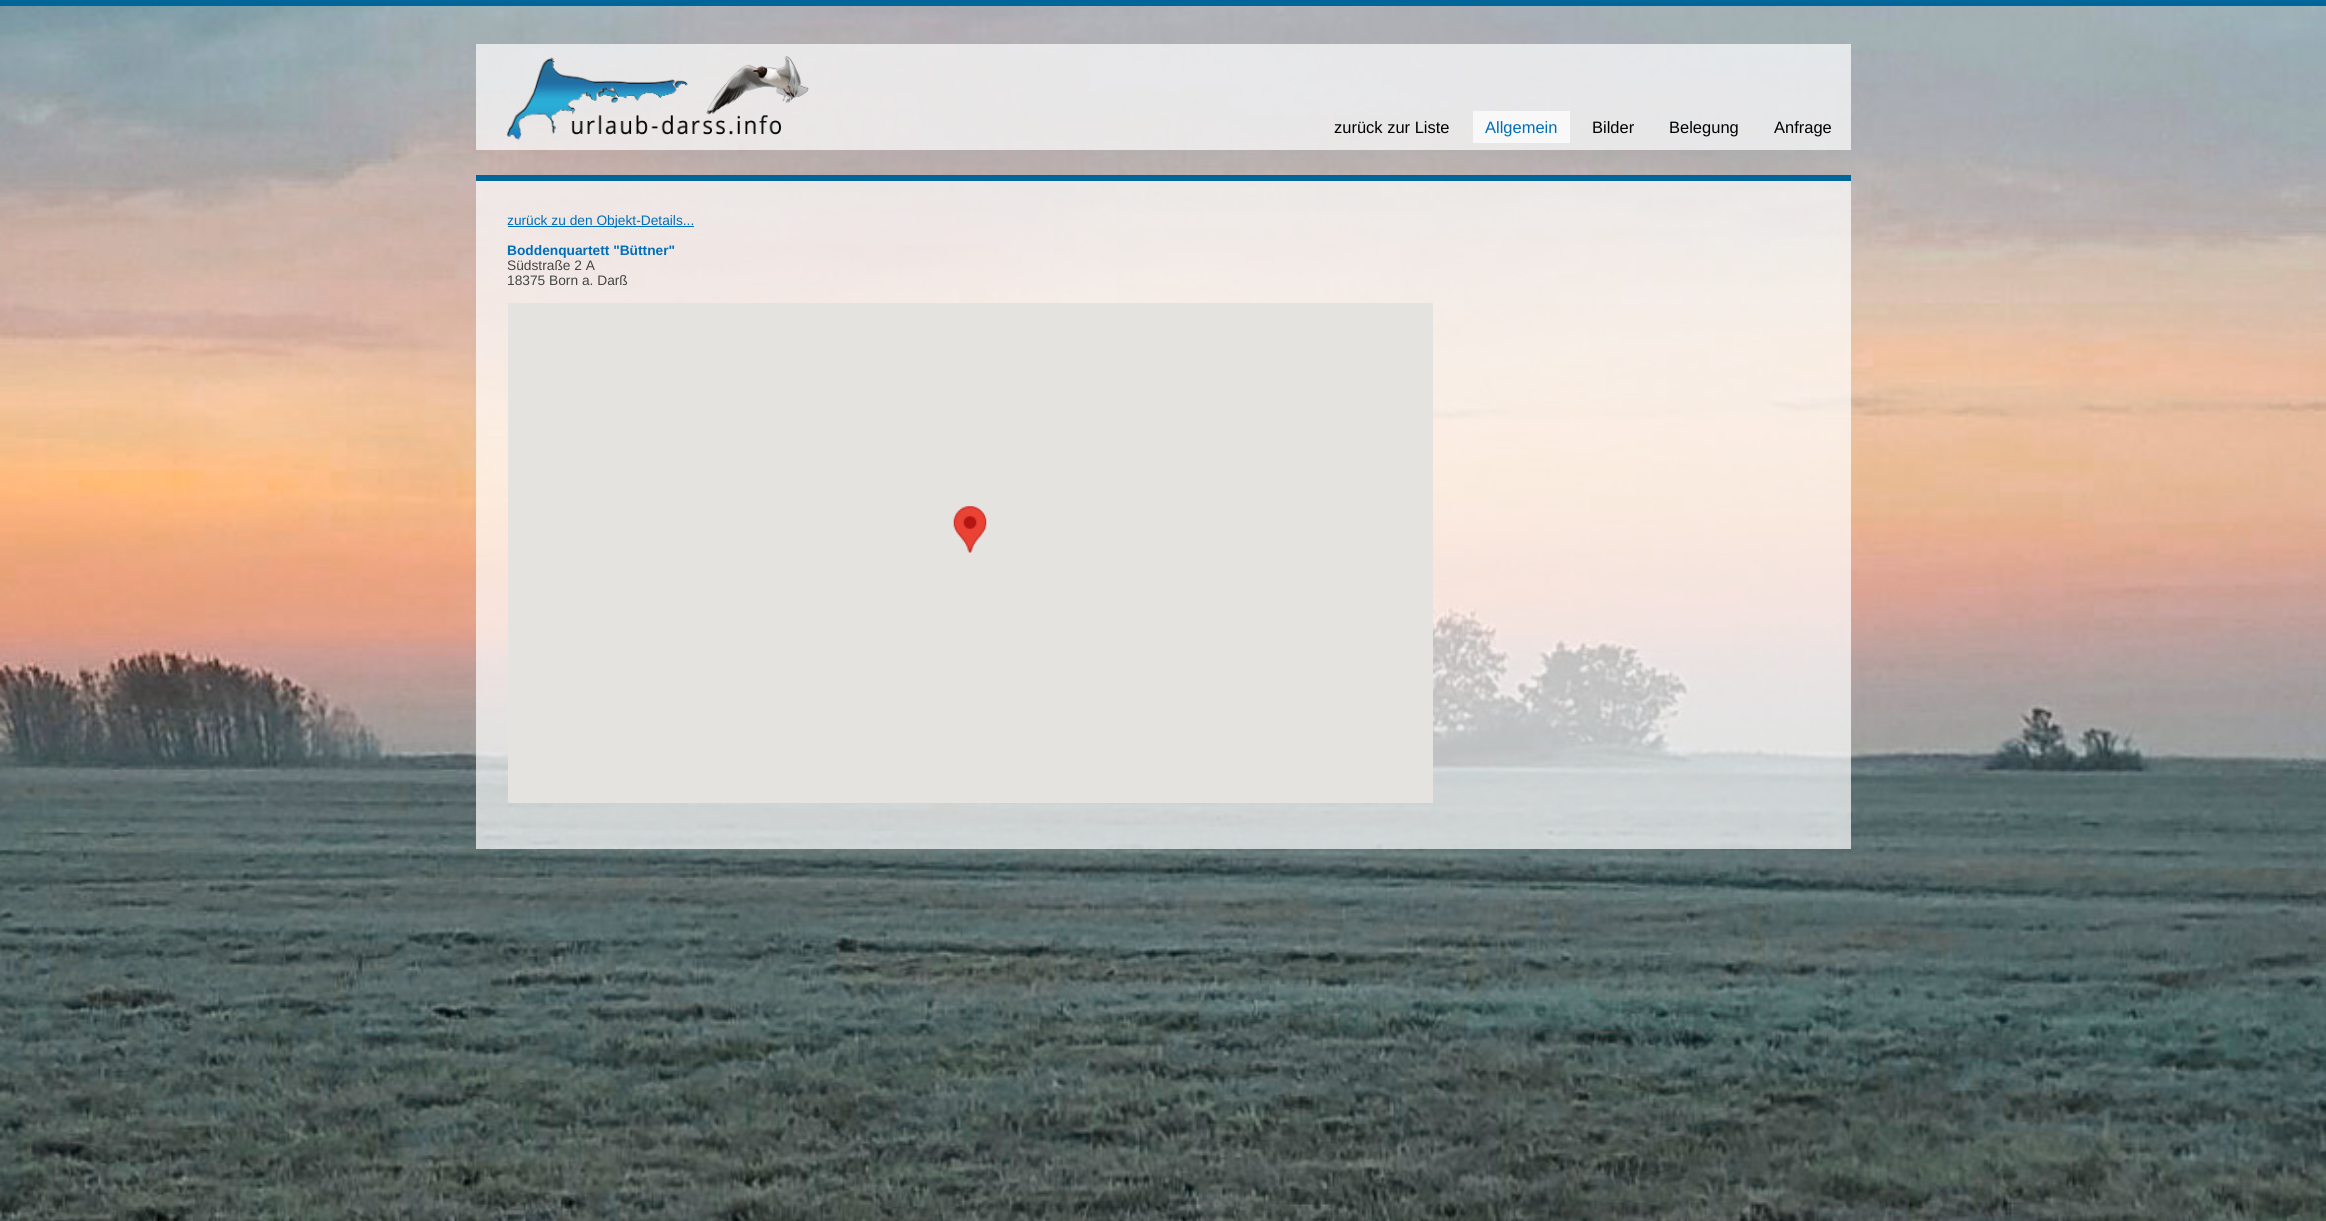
#include <cairo.h>
#include <math.h>
#include <stddef.h>


static void set_color(cairo_t *cr, unsigned color) {
    cairo_set_source_rgb(cr, (color >> 16) / 255.0, (color >> 8 & 255) / 255.0, (color & 255) / 255.0);
}

static void draw_text(cairo_t *cr, double x, double y, const char *s, const char *family, double size, int italic, int bold, unsigned color) {
    cairo_select_font_face(cr, family, italic ? CAIRO_FONT_SLANT_ITALIC : CAIRO_FONT_SLANT_NORMAL,
        bold ? CAIRO_FONT_WEIGHT_BOLD : CAIRO_FONT_WEIGHT_NORMAL);
    cairo_set_font_size(cr, size);
    set_color(cr, color);
    cairo_move_to(cr, x, y);
    cairo_show_text(cr, s);
}

static void fill_rect(cairo_t *cr, double x, double y, double w, double h, unsigned color) {
    set_color(cr, color);
    cairo_rectangle(cr, x, y, w, h);
    cairo_fill(cr);
}

static void draw_image(cairo_t *cr, const char *path, double x, double y, double w, double h) {
    cairo_surface_t *image = cairo_image_surface_create_from_png(path);
    cairo_save(cr);
    cairo_set_source_surface(cr, image, x, y);
    cairo_rectangle(cr, x, y, w, h);
    cairo_fill(cr);
    cairo_restore(cr);
    cairo_surface_destroy(image);
}

int main(void) {
    cairo_surface_t *surface = cairo_image_surface_create(CAIRO_FORMAT_RGB24, 2326, 1221);
    cairo_t *cr = cairo_create(surface);
    cairo_font_options_t *options = cairo_font_options_create();
    cairo_font_options_set_hint_metrics(options, CAIRO_HINT_METRICS_OFF);
    cairo_font_options_set_hint_style(options, CAIRO_HINT_STYLE_NONE);
    cairo_set_font_options(cr, options);
    cairo_set_miter_limit(cr, 4);
    set_color(cr, 0xFFFFFF);
    cairo_paint(cr);
    draw_image(cr, "assets/img1.png", 0, 6, 2326, 1215);
    fill_rect(cr, 0, 0, 2326, 6, 0x006699);
    cairo_set_source_rgba(cr, 1, 1, 1, 0.7);
    cairo_rectangle(cr, 476, 44, 1375, 106);
    cairo_fill(cr);
    draw_image(cr, "assets/img2.png", 506, 56, 303, 84);
    draw_text(cr, 1334, 133, "zurück zur Liste", "Liberation Sans", 16.5, 0, 0, 0x000000);
    cairo_set_source_rgba(cr, 1, 1, 1, 0.7);
    cairo_rectangle(cr, 1473, 111, 97, 32);
    cairo_fill(cr);
    draw_text(cr, 1485, 133, "Allgemein", "Liberation Sans", 16.5, 0, 0, 0x006EB9);
    draw_text(cr, 1592, 133, "Bilder", "Liberation Sans", 16.5, 0, 0, 0x000000);
    draw_text(cr, 1669, 133, "Belegung", "Liberation Sans", 16.5, 0, 0, 0x000000);
    draw_text(cr, 1774, 133, "Anfrage", "Liberation Sans", 16.5, 0, 0, 0x000000);
    cairo_set_source_rgba(cr, 1, 1, 1, 0.7);
    cairo_rectangle(cr, 476, 181, 1375, 668);
    cairo_fill(cr);
    fill_rect(cr, 476, 175, 1375, 6, 0x006699);
    fill_rect(cr, 508, 226, 186, 1, 0x006EB9);
    draw_text(cr, 507, 225, "zurück zu den Objekt-Details...", "Liberation Sans", 13.75, 0, 0, 0x006EB9);
    draw_text(cr, 507, 255, "Boddenquartett \"Büttner\"", "Liberation Sans", 13.75, 0, 1, 0x006EB9);
    draw_text(cr, 507, 270, "Südstraße 2 A", "Liberation Sans", 13.75, 0, 0, 0x444444);
    draw_text(cr, 507, 285, "18375 Born a. Darß", "Liberation Sans", 13.75, 0, 0, 0x444444);
    fill_rect(cr, 508, 303, 925, 500, 0xE5E3DF);
    draw_image(cr, "assets/img3.png", 953, 506, 34, 47);
    cairo_surface_write_to_png(surface, "output.png");
    cairo_font_options_destroy(options);
    cairo_destroy(cr);
    cairo_surface_destroy(surface);
    return 0;
}
